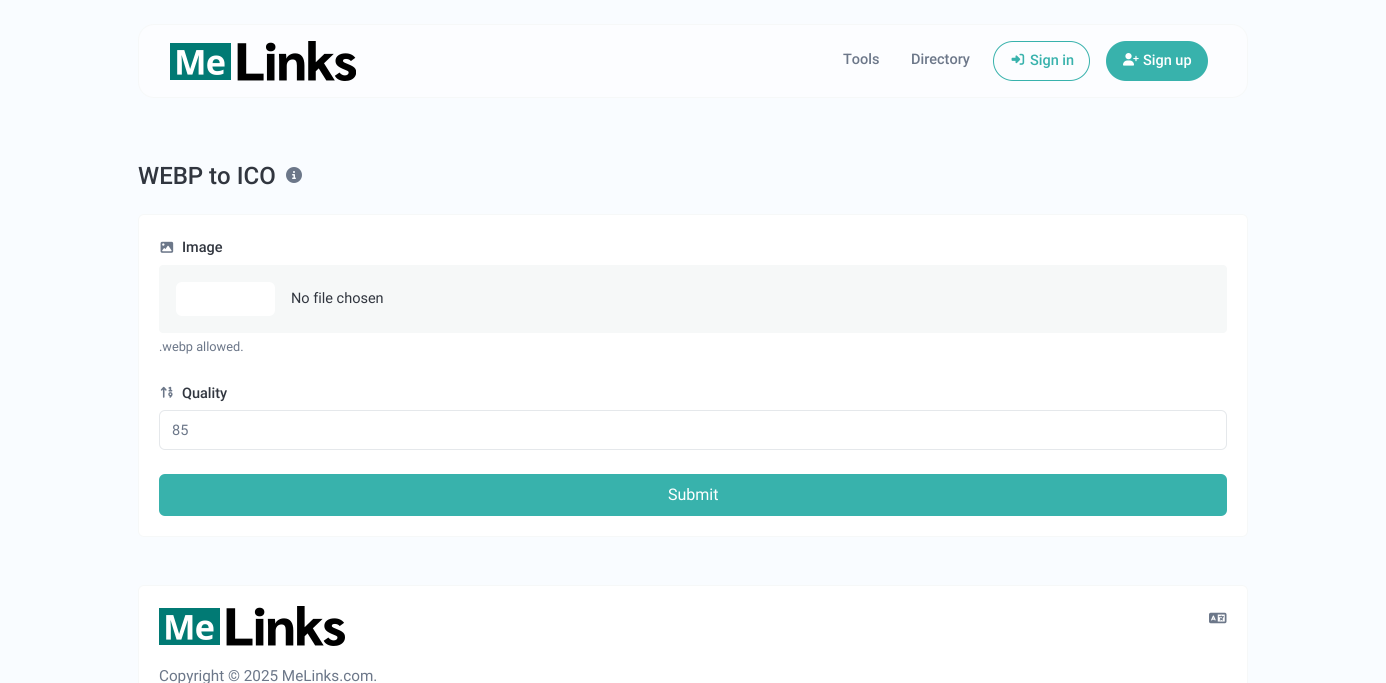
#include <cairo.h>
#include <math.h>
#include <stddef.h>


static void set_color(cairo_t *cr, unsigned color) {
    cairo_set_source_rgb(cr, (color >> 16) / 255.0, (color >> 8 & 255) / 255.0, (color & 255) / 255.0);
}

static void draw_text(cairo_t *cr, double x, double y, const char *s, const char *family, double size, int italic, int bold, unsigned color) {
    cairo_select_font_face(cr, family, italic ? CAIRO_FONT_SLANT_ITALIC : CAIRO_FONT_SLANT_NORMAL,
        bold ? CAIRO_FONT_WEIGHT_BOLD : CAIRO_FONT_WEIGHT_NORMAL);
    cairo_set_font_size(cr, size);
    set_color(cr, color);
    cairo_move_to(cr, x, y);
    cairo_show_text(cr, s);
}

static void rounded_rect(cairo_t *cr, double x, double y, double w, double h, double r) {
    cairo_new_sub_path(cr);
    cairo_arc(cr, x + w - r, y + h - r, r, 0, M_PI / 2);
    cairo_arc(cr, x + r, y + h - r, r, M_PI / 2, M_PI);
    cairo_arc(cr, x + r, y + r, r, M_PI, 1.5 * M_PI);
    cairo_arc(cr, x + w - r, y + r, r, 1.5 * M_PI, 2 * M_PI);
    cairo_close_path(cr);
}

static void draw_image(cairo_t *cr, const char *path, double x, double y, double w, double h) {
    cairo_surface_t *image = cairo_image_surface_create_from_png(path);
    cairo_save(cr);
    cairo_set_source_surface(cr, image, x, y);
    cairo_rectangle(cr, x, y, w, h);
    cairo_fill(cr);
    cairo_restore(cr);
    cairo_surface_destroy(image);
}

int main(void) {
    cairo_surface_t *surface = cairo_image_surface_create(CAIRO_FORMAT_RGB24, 1386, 683);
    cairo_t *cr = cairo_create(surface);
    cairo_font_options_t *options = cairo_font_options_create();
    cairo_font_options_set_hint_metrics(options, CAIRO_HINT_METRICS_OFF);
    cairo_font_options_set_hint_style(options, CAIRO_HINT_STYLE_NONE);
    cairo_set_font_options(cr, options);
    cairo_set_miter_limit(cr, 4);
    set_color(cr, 0xF9FCFF);
    cairo_paint(cr);
    set_color(cr, 0xFCFDFF);
    rounded_rect(cr, 138.5, 24.5, 1109, 73, 15.5);
    cairo_fill_preserve(cr);
    set_color(cr, 0xF6F8F8);
    cairo_set_line_width(cr, 1);
    cairo_stroke(cr);
    draw_image(cr, "assets/img1.png", 170, 41, 186, 40);
    draw_text(cr, 843, 64, "Tools", "Roboto Medium", 14.5, 0, 0, 0x6C7789);
    draw_text(cr, 911, 64, "Directory", "Roboto Medium", 14.5, 0, 0, 0x6C7789);
    rounded_rect(cr, 993.5, 41.5, 96, 39, 19.5);
    set_color(cr, 0x38B2AC);
    cairo_stroke(cr);
    draw_image(cr, "assets/img2.png", 1011, 53, 14, 12);
    draw_text(cr, 1030, 65, "Sign in", "Roboto Medium", 14.5, 0, 0, 0x38B2AC);
    rounded_rect(cr, 1106, 41, 102, 40, 20);
    cairo_fill(cr);
    draw_image(cr, "assets/img3.png", 1123, 53, 16, 13);
    draw_text(cr, 1143, 65, "Sign up", "Roboto Medium", 14.5, 0, 0, 0xFFFFFF);
    draw_text(cr, 138, 184, "WEBP to ICO", "Roboto Medium", 24, 0, 0, 0x31363F);
    draw_image(cr, "assets/img4.png", 286, 167, 16, 16);
    set_color(cr, 0xFFFFFF);
    rounded_rect(cr, 138.5, 214.5, 1109, 322, 5.5);
    cairo_fill_preserve(cr);
    set_color(cr, 0xF6F8F8);
    cairo_stroke(cr);
    draw_image(cr, "assets/img5.png", 160, 241, 14, 12);
    draw_text(cr, 182, 252, "Image", "Roboto Medium", 14.5, 0, 0, 0x31363F);
    set_color(cr, 0xF6F8F8);
    rounded_rect(cr, 159, 265, 1068, 68, 4);
    cairo_fill(cr);
    set_color(cr, 0xFFFFFF);
    rounded_rect(cr, 176, 282, 99, 34, 6);
    cairo_fill(cr);
    draw_text(cr, 291, 303, "No file chosen", "Roboto", 14.5, 0, 0, 0x31363F);
    draw_text(cr, 159, 351, ".webp allowed.", "Roboto", 12.75, 0, 0, 0x6C7789);
    draw_image(cr, "assets/img6.png", 160, 386, 13, 12);
    draw_text(cr, 182, 398, "Quality", "Roboto Medium", 14.5, 0, 0, 0x31363F);
    rounded_rect(cr, 159.5, 410.5, 1067, 39, 5.5);
    set_color(cr, 0xE5E8EB);
    cairo_stroke(cr);
    draw_text(cr, 172, 435, "85", "Roboto", 14.5, 0, 0, 0x6C7789);
    set_color(cr, 0x38B2AC);
    rounded_rect(cr, 159, 474, 1068, 42, 6);
    cairo_fill(cr);
    draw_text(cr, 668, 500, "Submit", "Roboto", 16, 0, 0, 0xFFFFFF);
    rounded_rect(cr, 138.5, 585.5, 1109, 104, 5.5);
    cairo_fill_preserve(cr);
    set_color(cr, 0xF6F8F8);
    cairo_stroke(cr);
    draw_image(cr, "assets/img7.png", 1209, 612, 18, 12);
    draw_image(cr, "assets/img8.png", 159, 606, 186, 40);
    draw_text(cr, 159, 681, "Copyright © 2025 MeLinks.com.", "Roboto", 15.25, 0, 0, 0x6C7789);
    cairo_surface_write_to_png(surface, "output.png");
    cairo_font_options_destroy(options);
    cairo_destroy(cr);
    cairo_surface_destroy(surface);
    return 0;
}
